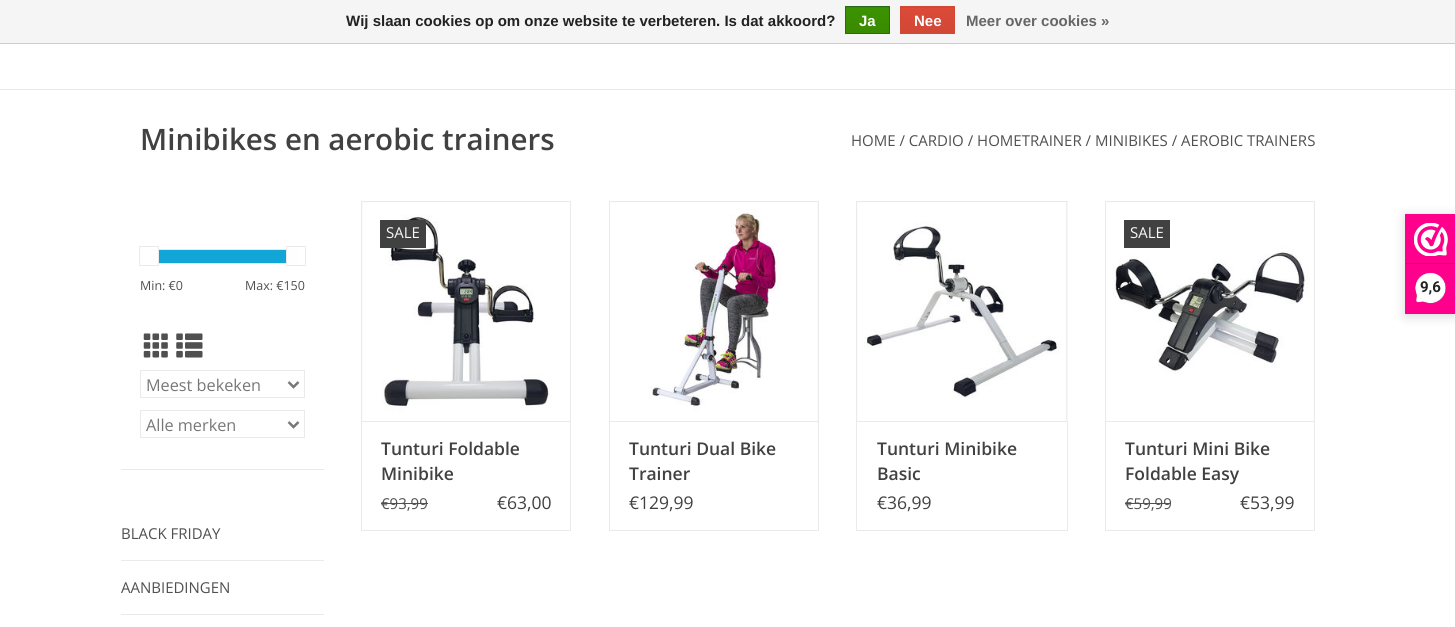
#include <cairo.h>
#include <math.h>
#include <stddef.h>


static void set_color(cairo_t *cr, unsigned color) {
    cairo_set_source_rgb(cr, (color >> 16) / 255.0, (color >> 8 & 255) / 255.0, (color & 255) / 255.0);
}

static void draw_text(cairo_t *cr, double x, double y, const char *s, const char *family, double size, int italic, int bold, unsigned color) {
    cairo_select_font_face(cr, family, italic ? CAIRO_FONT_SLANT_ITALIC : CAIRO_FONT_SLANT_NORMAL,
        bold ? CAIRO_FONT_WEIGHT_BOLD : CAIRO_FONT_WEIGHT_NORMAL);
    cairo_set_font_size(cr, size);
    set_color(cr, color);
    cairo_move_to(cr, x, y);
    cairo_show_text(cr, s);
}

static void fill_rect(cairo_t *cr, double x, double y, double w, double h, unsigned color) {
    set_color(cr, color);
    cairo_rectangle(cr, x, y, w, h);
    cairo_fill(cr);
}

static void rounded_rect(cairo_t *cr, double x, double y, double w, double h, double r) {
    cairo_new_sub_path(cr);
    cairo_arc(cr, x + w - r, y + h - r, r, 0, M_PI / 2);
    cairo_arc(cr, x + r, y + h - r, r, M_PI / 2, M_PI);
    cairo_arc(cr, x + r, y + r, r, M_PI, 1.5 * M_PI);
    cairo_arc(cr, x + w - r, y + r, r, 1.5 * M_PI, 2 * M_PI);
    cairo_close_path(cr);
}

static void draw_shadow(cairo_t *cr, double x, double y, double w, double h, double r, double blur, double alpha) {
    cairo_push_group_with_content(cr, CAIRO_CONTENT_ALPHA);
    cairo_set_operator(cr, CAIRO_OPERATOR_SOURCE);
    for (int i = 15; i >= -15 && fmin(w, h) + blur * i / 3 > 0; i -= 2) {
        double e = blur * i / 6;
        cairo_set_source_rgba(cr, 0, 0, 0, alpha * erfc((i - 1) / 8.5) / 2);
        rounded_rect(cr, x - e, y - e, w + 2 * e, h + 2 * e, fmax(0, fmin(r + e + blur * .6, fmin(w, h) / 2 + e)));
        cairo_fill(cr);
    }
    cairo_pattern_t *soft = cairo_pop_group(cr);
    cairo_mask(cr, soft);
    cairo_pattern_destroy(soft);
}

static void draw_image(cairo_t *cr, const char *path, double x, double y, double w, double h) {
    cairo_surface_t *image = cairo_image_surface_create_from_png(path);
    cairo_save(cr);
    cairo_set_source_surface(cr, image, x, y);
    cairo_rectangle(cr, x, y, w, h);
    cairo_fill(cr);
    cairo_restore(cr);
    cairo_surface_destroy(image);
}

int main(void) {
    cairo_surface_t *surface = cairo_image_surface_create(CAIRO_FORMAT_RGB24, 1455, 627);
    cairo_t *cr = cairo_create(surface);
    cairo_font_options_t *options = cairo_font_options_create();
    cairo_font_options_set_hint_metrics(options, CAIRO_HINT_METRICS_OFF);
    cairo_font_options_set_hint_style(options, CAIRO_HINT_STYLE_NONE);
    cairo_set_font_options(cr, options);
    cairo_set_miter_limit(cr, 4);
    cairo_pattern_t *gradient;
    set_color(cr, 0xFFFFFF);
    cairo_paint(cr);
    fill_rect(cr, 0, 0, 1455, 43, 0xF5F5F5);
    fill_rect(cr, 0, 43, 1455, 1, 0xCCCCCC);
    draw_text(cr, 346, 26, "Wij slaan cookies op om onze website te verbeteren. Is dat akkoord?", "Liberation Sans", 15, 0, 1, 0x222222);
    gradient = cairo_pattern_create_linear(868, -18, 868, 7.5);
    cairo_pattern_add_color_stop_rgba(gradient, 0, 0.235, 0.576, 0, 1);
    cairo_pattern_add_color_stop_rgba(gradient, 1, 0.224, 0.541, 0, 1);
    cairo_set_source(cr, gradient);
    cairo_pattern_destroy(gradient);
    cairo_rectangle(cr, 845, 7, 45, 1);
    cairo_fill(cr);
    gradient = cairo_pattern_create_linear(868, 7.5, 868, 33);
    cairo_pattern_add_color_stop_rgba(gradient, 0, 0.235, 0.576, 0, 1);
    cairo_pattern_add_color_stop_rgba(gradient, 1, 0.224, 0.541, 0, 1);
    cairo_set_source(cr, gradient);
    cairo_pattern_destroy(gradient);
    cairo_rectangle(cr, 846, 8, 43, 25);
    cairo_fill(cr);
    cairo_rectangle(cr, 845.5, 6.5, 44, 27);
    set_color(cr, 0x29691D);
    cairo_set_line_width(cr, 1);
    cairo_stroke(cr);
    draw_text(cr, 859, 26, "Ja", "Liberation Sans", 15, 0, 1, 0xFFFFFF);
    gradient = cairo_pattern_create_linear(928, -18, 928, 7.5);
    cairo_pattern_add_color_stop_rgba(gradient, 0, 0.863, 0.29, 0.22, 1);
    cairo_pattern_add_color_stop_rgba(gradient, 1, 0.82, 0.282, 0.212, 1);
    cairo_set_source(cr, gradient);
    cairo_pattern_destroy(gradient);
    cairo_rectangle(cr, 900, 7, 55, 1);
    cairo_fill(cr);
    gradient = cairo_pattern_create_linear(928, 7.5, 928, 33);
    cairo_pattern_add_color_stop_rgba(gradient, 0, 0.863, 0.29, 0.22, 1);
    cairo_pattern_add_color_stop_rgba(gradient, 1, 0.82, 0.282, 0.212, 1);
    cairo_set_source(cr, gradient);
    cairo_pattern_destroy(gradient);
    cairo_rectangle(cr, 901, 8, 53, 25);
    cairo_fill(cr);
    cairo_rectangle(cr, 900.5, 6.5, 54, 27);
    set_color(cr, 0xD14836);
    cairo_stroke(cr);
    draw_text(cr, 914, 26, "Nee", "Liberation Sans", 15, 0, 1, 0xFFFFFF);
    draw_text(cr, 966, 26, "Meer over cookies »", "Liberation Sans", 15, 0, 1, 0x666666);
    fill_rect(cr, 0, 89, 1455, 1, 0xEAEAEA);
    draw_text(cr, 140, 150, "Minibikes en aerobic trainers", "Open Sans SemiBold", 29.5, 0, 0, 0x414141);
    draw_text(cr, 851, 146, "HOME / CARDIO / HOMETRAINER / MINIBIKES / AEROBIC TRAINERS", "Open Sans", 15, 0, 0, 0x505050);
    fill_rect(cr, 121, 469, 203, 1, 0xEAEAEA);
    fill_rect(cr, 159, 250, 127, 13, 0x11A6D7);
    cairo_rectangle(cr, 150.5, 249.5, 147, 14);
    set_color(cr, 0xEAEAEA);
    cairo_stroke(cr);
    fill_rect(cr, 150, 249, 8, 15, 0xFEFEFE);
    cairo_rectangle(cr, 139.5, 246.5, 19, 19);
    set_color(cr, 0xEAEAEA);
    cairo_stroke(cr);
    fill_rect(cr, 287, 249, 11, 15, 0xFEFEFE);
    cairo_rectangle(cr, 286.5, 246.5, 19, 19);
    set_color(cr, 0xEAEAEA);
    cairo_stroke(cr);
    draw_text(cr, 140, 290, "Min: €0", "Open Sans", 12.5, 0, 0, 0x505050);
    draw_text(cr, 245, 290, "Max: €150", "Open Sans", 12.5, 0, 0, 0x505050);
    draw_image(cr, "assets/img1.png", 143, 333, 25, 25);
    draw_image(cr, "assets/img2.png", 176, 333, 27, 25);
    cairo_rectangle(cr, 140.5, 370.5, 164, 27);
    set_color(cr, 0xEAEAEA);
    cairo_stroke(cr);
    cairo_new_path(cr);
    cairo_move_to(cr, 288.5, 382);
    cairo_line_to(cr, 293.5, 387);
    cairo_line_to(cr, 298.5, 382);
    set_color(cr, 0x777777);
    cairo_set_line_width(cr, 2.5);
    cairo_stroke(cr);
    draw_text(cr, 146, 391, "Meest bekeken", "Open Sans", 16.25, 0, 0, 0x777777);
    cairo_rectangle(cr, 140.5, 410.5, 164, 27);
    set_color(cr, 0xEAEAEA);
    cairo_set_line_width(cr, 1);
    cairo_stroke(cr);
    cairo_new_path(cr);
    cairo_move_to(cr, 288.5, 422);
    cairo_line_to(cr, 293.5, 427);
    cairo_line_to(cr, 298.5, 422);
    set_color(cr, 0x777777);
    cairo_set_line_width(cr, 2.5);
    cairo_stroke(cr);
    draw_text(cr, 146, 431, "Alle merken", "Open Sans", 16.25, 0, 0, 0x777777);
    fill_rect(cr, 121, 560, 203, 1, 0xEAEAEA);
    draw_text(cr, 121, 539, "BLACK FRIDAY", "Open Sans", 15, 0, 0, 0x505050);
    fill_rect(cr, 121, 614, 203, 1, 0xEAEAEA);
    draw_text(cr, 121, 593, "AANBIEDINGEN", "Open Sans", 15, 0, 0, 0x505050);
    fill_rect(cr, 362, 202, 208, 219, 0xF7F7F7);
    fill_rect(cr, 361, 201, 210, 1, 0xEAEAEA);
    fill_rect(cr, 570, 201, 1, 220, 0xEAEAEA);
    fill_rect(cr, 361, 201, 1, 220, 0xEAEAEA);
    draw_image(cr, "assets/img3.png", 362, 202, 208, 219);
    fill_rect(cr, 380, 220, 46, 28, 0x414141);
    draw_text(cr, 386, 238, "SALE", "Open Sans", 15, 0, 0, 0xF7F7F7);
    cairo_rectangle(cr, 361.5, 421.5, 209, 109);
    set_color(cr, 0xEAEAEA);
    cairo_set_line_width(cr, 1);
    cairo_stroke(cr);
    draw_text(cr, 381, 455, "Tunturi Foldable", "Open Sans SemiBold", 17.5, 0, 0, 0x414141);
    draw_text(cr, 381, 480, "Minibike", "Open Sans SemiBold", 17.5, 0, 0, 0x414141);
    draw_text(cr, 381, 509, "€93,99", "Open Sans", 15, 0, 0, 0x505050);
    fill_rect(cr, 381, 503, 47, 1, 0x505050);
    draw_text(cr, 497, 509, "€63,00", "Open Sans", 17.5, 0, 0, 0x414141);
    fill_rect(cr, 610, 202, 208, 219, 0xF7F7F7);
    fill_rect(cr, 609, 201, 210, 1, 0xEAEAEA);
    fill_rect(cr, 818, 201, 1, 220, 0xEAEAEA);
    fill_rect(cr, 609, 201, 1, 220, 0xEAEAEA);
    draw_image(cr, "assets/img4.png", 610, 202, 208, 219);
    cairo_rectangle(cr, 609.5, 421.5, 209, 109);
    cairo_stroke(cr);
    draw_text(cr, 629, 455, "Tunturi Dual Bike", "Open Sans SemiBold", 17.5, 0, 0, 0x414141);
    draw_text(cr, 629, 480, "Trainer", "Open Sans SemiBold", 17.5, 0, 0, 0x414141);
    draw_text(cr, 629, 509, "€129,99", "Open Sans", 17.5, 0, 0, 0x414141);
    fill_rect(cr, 857, 202, 211, 219, 0xF7F7F7);
    fill_rect(cr, 856, 201, 212, 1, 0xEAEAEA);
    fill_rect(cr, 1066, 201, 1, 220, 0xEAEAEA);
    fill_rect(cr, 856, 201, 1, 220, 0xEAEAEA);
    draw_image(cr, "assets/img5.png", 857, 202, 210, 219);
    cairo_rectangle(cr, 856.5, 421.5, 211, 109);
    cairo_stroke(cr);
    draw_text(cr, 877, 455, "Tunturi Minibike", "Open Sans SemiBold", 17.5, 0, 0, 0x414141);
    draw_text(cr, 877, 480, "Basic", "Open Sans SemiBold", 17.5, 0, 0, 0x414141);
    draw_text(cr, 877, 509, "€36,99", "Open Sans", 17.5, 0, 0, 0x414141);
    fill_rect(cr, 1106, 202, 208, 219, 0xF7F7F7);
    fill_rect(cr, 1105, 201, 210, 1, 0xEAEAEA);
    fill_rect(cr, 1314, 201, 1, 220, 0xEAEAEA);
    fill_rect(cr, 1105, 201, 1, 220, 0xEAEAEA);
    draw_image(cr, "assets/img6.png", 1106, 202, 208, 219);
    fill_rect(cr, 1124, 220, 46, 28, 0x414141);
    draw_text(cr, 1130, 238, "SALE", "Open Sans", 15, 0, 0, 0xF7F7F7);
    cairo_rectangle(cr, 1105.5, 421.5, 209, 109);
    set_color(cr, 0xEAEAEA);
    cairo_stroke(cr);
    draw_text(cr, 1125, 455, "Tunturi Mini Bike", "Open Sans SemiBold", 17.5, 0, 0, 0x414141);
    draw_text(cr, 1125, 480, "Foldable Easy", "Open Sans SemiBold", 17.5, 0, 0, 0x414141);
    draw_text(cr, 1125, 509, "€59,99", "Open Sans", 15, 0, 0, 0x505050);
    fill_rect(cr, 1125, 503, 46, 1, 0x505050);
    draw_text(cr, 1240, 509, "€53,99", "Open Sans", 17.5, 0, 0, 0x414141);
    set_color(cr, 0x000000);
    draw_shadow(cr, 1405, 216, 50, 100, 0, 6, 0.15);
    fill_rect(cr, 1405, 214, 50, 100, 0xFE008C);
    draw_image(cr, "assets/img7.png", 1414, 223, 34, 33);
    fill_rect(cr, 1406, 263, 49, 1, 0xD80077);
    draw_image(cr, "assets/img8.png", 1415, 272, 31, 32);
    draw_text(cr, 1420, 292, "9,6", "Roboto", 15, 0, 1, 0x222222);
    cairo_surface_write_to_png(surface, "output.png");
    cairo_font_options_destroy(options);
    cairo_destroy(cr);
    cairo_surface_destroy(surface);
    return 0;
}
